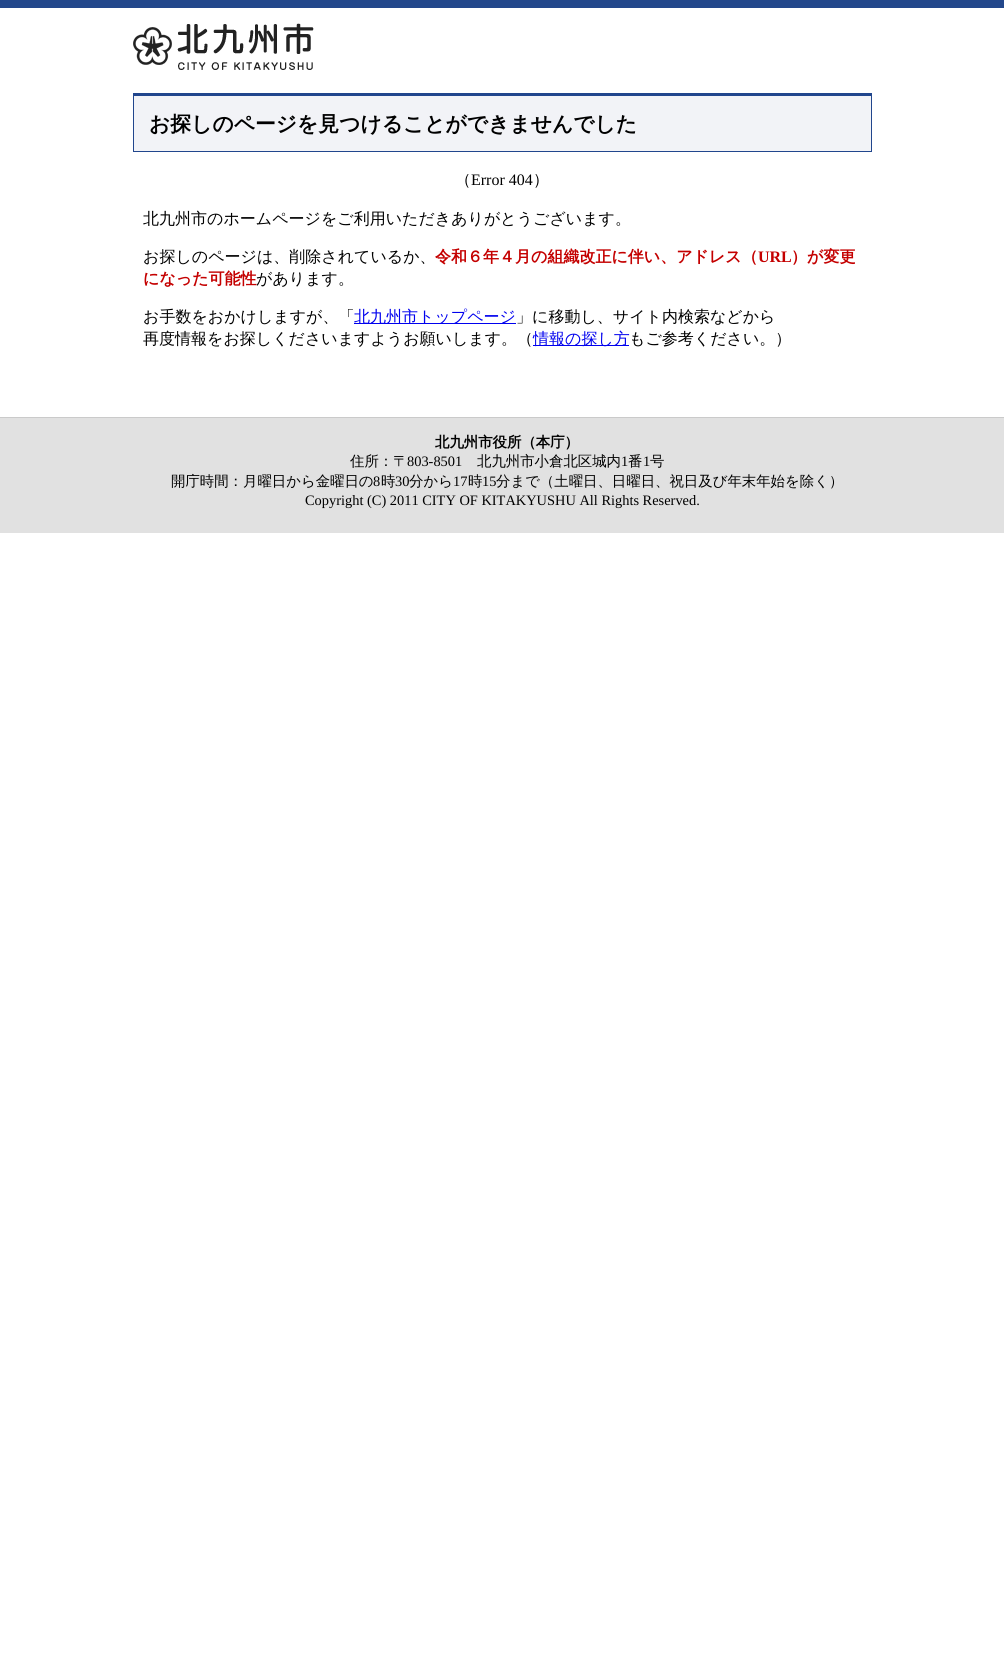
#include <cairo.h>
#include <math.h>
#include <stddef.h>


static void set_color(cairo_t *cr, unsigned color) {
    cairo_set_source_rgb(cr, (color >> 16) / 255.0, (color >> 8 & 255) / 255.0, (color & 255) / 255.0);
}

static void draw_text(cairo_t *cr, double x, double y, const char *s, const char *family, double size, int italic, int bold, unsigned color) {
    cairo_select_font_face(cr, family, italic ? CAIRO_FONT_SLANT_ITALIC : CAIRO_FONT_SLANT_NORMAL,
        bold ? CAIRO_FONT_WEIGHT_BOLD : CAIRO_FONT_WEIGHT_NORMAL);
    cairo_set_font_size(cr, size);
    set_color(cr, color);
    cairo_move_to(cr, x, y);
    cairo_show_text(cr, s);
}

static void fill_rect(cairo_t *cr, double x, double y, double w, double h, unsigned color) {
    set_color(cr, color);
    cairo_rectangle(cr, x, y, w, h);
    cairo_fill(cr);
}

static void draw_image(cairo_t *cr, const char *path, double x, double y, double w, double h) {
    cairo_surface_t *image = cairo_image_surface_create_from_png(path);
    cairo_save(cr);
    cairo_set_source_surface(cr, image, x, y);
    cairo_rectangle(cr, x, y, w, h);
    cairo_fill(cr);
    cairo_restore(cr);
    cairo_surface_destroy(image);
}

int main(void) {
    cairo_surface_t *surface = cairo_image_surface_create(CAIRO_FORMAT_RGB24, 1004, 1671);
    cairo_t *cr = cairo_create(surface);
    cairo_font_options_t *options = cairo_font_options_create();
    cairo_font_options_set_hint_metrics(options, CAIRO_HINT_METRICS_OFF);
    cairo_font_options_set_hint_style(options, CAIRO_HINT_STYLE_NONE);
    cairo_set_font_options(cr, options);
    cairo_set_miter_limit(cr, 4);
    set_color(cr, 0xFFFFFF);
    cairo_paint(cr);
    fill_rect(cr, 0, 0, 1004, 8, 0x23478B);
    draw_image(cr, "assets/img1.png", 133, 23, 181, 47);
    fill_rect(cr, 134, 96, 737, 55, 0xF2F3F7);
    fill_rect(cr, 133, 93, 739, 3, 0x21468D);
    fill_rect(cr, 871, 93, 1, 59, 0x21468D);
    fill_rect(cr, 133, 151, 739, 1, 0x21468D);
    fill_rect(cr, 133, 93, 1, 59, 0x21468D);
    draw_text(cr, 149, 131, "お探しのページを見つけることができませんでした", "WenQuanYi Zen Hei", 20.8, 0, 1, 0x000000);
    draw_text(cr, 455, 185, "（", "WenQuanYi Zen Hei Medium", 16, 0, 0, 0x000000);
    draw_text(cr, 471, 185, "Error 404", "Liberation Serif", 16, 0, 0, 0x000000);
    draw_text(cr, 533, 185, "）", "WenQuanYi Zen Hei Medium", 16, 0, 0, 0x000000);
    draw_text(cr, 143, 224, "北九州市のホームページをご利用いただきありがとうございます。", "WenQuanYi Zen Hei Medium", 16, 0, 0, 0x000000);
    draw_text(cr, 143, 262, "お探しのページは、削除されているか、", "WenQuanYi Zen Hei Medium", 16, 0, 0, 0x000000);
    draw_text(cr, 435, 262, "令和６年４月の組織改正に伴い、アドレス（", "WenQuanYi Zen Hei", 16, 0, 1, 0xC40000);
    draw_text(cr, 758, 262, "URL", "Liberation Serif", 16, 0, 1, 0xC40000);
    draw_text(cr, 791, 262, "）が変更", "WenQuanYi Zen Hei", 16, 0, 1, 0xC40000);
    draw_text(cr, 143, 284, "になった可能性", "WenQuanYi Zen Hei", 16, 0, 1, 0xC40000);
    draw_text(cr, 256, 284, "があります。", "WenQuanYi Zen Hei Medium", 16, 0, 0, 0x000000);
    draw_text(cr, 143, 322, "お手数をおかけしますが、「", "WenQuanYi Zen Hei Medium", 16, 0, 0, 0x000000);
    fill_rect(cr, 354, 323, 162, 1, 0x0000EE);
    draw_text(cr, 354, 322, "北九州市トップページ", "WenQuanYi Zen Hei Medium", 16, 0, 0, 0x0000EE);
    draw_text(cr, 516, 322, "」に移動し、サイト内検索などから", "WenQuanYi Zen Hei Medium", 16, 0, 0, 0x000000);
    draw_text(cr, 143, 344, "再度情報をお探しくださいますようお願いします。（", "WenQuanYi Zen Hei Medium", 16, 0, 0, 0x000000);
    fill_rect(cr, 533, 345, 96, 1, 0x0000EE);
    draw_text(cr, 533, 344, "情報の探し方", "WenQuanYi Zen Hei Medium", 16, 0, 0, 0x0000EE);
    draw_text(cr, 629, 344, "もご参考ください。）", "WenQuanYi Zen Hei Medium", 16, 0, 0, 0x000000);
    fill_rect(cr, 0, 418, 1004, 115, 0xE1E1E1);
    fill_rect(cr, 0, 417, 1004, 1, 0xCACACA);
    draw_text(cr, 435, 447, "北九州市役所（本庁）", "WenQuanYi Zen Hei", 14.4, 0, 1, 0x000000);
    draw_text(cr, 350, 466, "住所：〒", "WenQuanYi Zen Hei Medium", 14.4, 0, 0, 0x000000);
    draw_text(cr, 407, 466, "803-8501", "Liberation Serif", 14.4, 0, 0, 0x000000);
    draw_text(cr, 477, 466, "北九州市小倉北区城内", "WenQuanYi Zen Hei Medium", 14.4, 0, 0, 0x000000);
    draw_text(cr, 621, 466, "1", "Liberation Serif", 14.4, 0, 0, 0x000000);
    draw_text(cr, 628, 466, "番", "WenQuanYi Zen Hei Medium", 14.4, 0, 0, 0x000000);
    draw_text(cr, 643, 466, "1", "Liberation Serif", 14.4, 0, 0, 0x000000);
    draw_text(cr, 650, 466, "号", "WenQuanYi Zen Hei Medium", 14.4, 0, 0, 0x000000);
    draw_text(cr, 171, 486, "開庁時間：月曜日から金曜日の", "WenQuanYi Zen Hei Medium", 14.4, 0, 0, 0x000000);
    draw_text(cr, 373, 486, "8", "Liberation Serif", 14.4, 0, 0, 0x000000);
    draw_text(cr, 381, 486, "時", "WenQuanYi Zen Hei Medium", 14.4, 0, 0, 0x000000);
    draw_text(cr, 395, 486, "30", "Liberation Serif", 14.4, 0, 0, 0x000000);
    draw_text(cr, 409, 486, "分から", "WenQuanYi Zen Hei Medium", 14.4, 0, 0, 0x000000);
    draw_text(cr, 453, 486, "17", "Liberation Serif", 14.4, 0, 0, 0x000000);
    draw_text(cr, 468, 486, "時", "WenQuanYi Zen Hei Medium", 14.4, 0, 0, 0x000000);
    draw_text(cr, 482, 486, "15", "Liberation Serif", 14.4, 0, 0, 0x000000);
    draw_text(cr, 496, 486, "分まで（土曜日、日曜日、祝日及び年末年始を除く）", "WenQuanYi Zen Hei Medium", 14.4, 0, 0, 0x000000);
    draw_text(cr, 305, 505, "Copyright (C) 2011 CITY OF KITAKYUSHU All Rights Reserved.", "Liberation Serif", 14.4, 0, 0, 0x000000);
    cairo_surface_write_to_png(surface, "output.png");
    cairo_font_options_destroy(options);
    cairo_destroy(cr);
    cairo_surface_destroy(surface);
    return 0;
}
